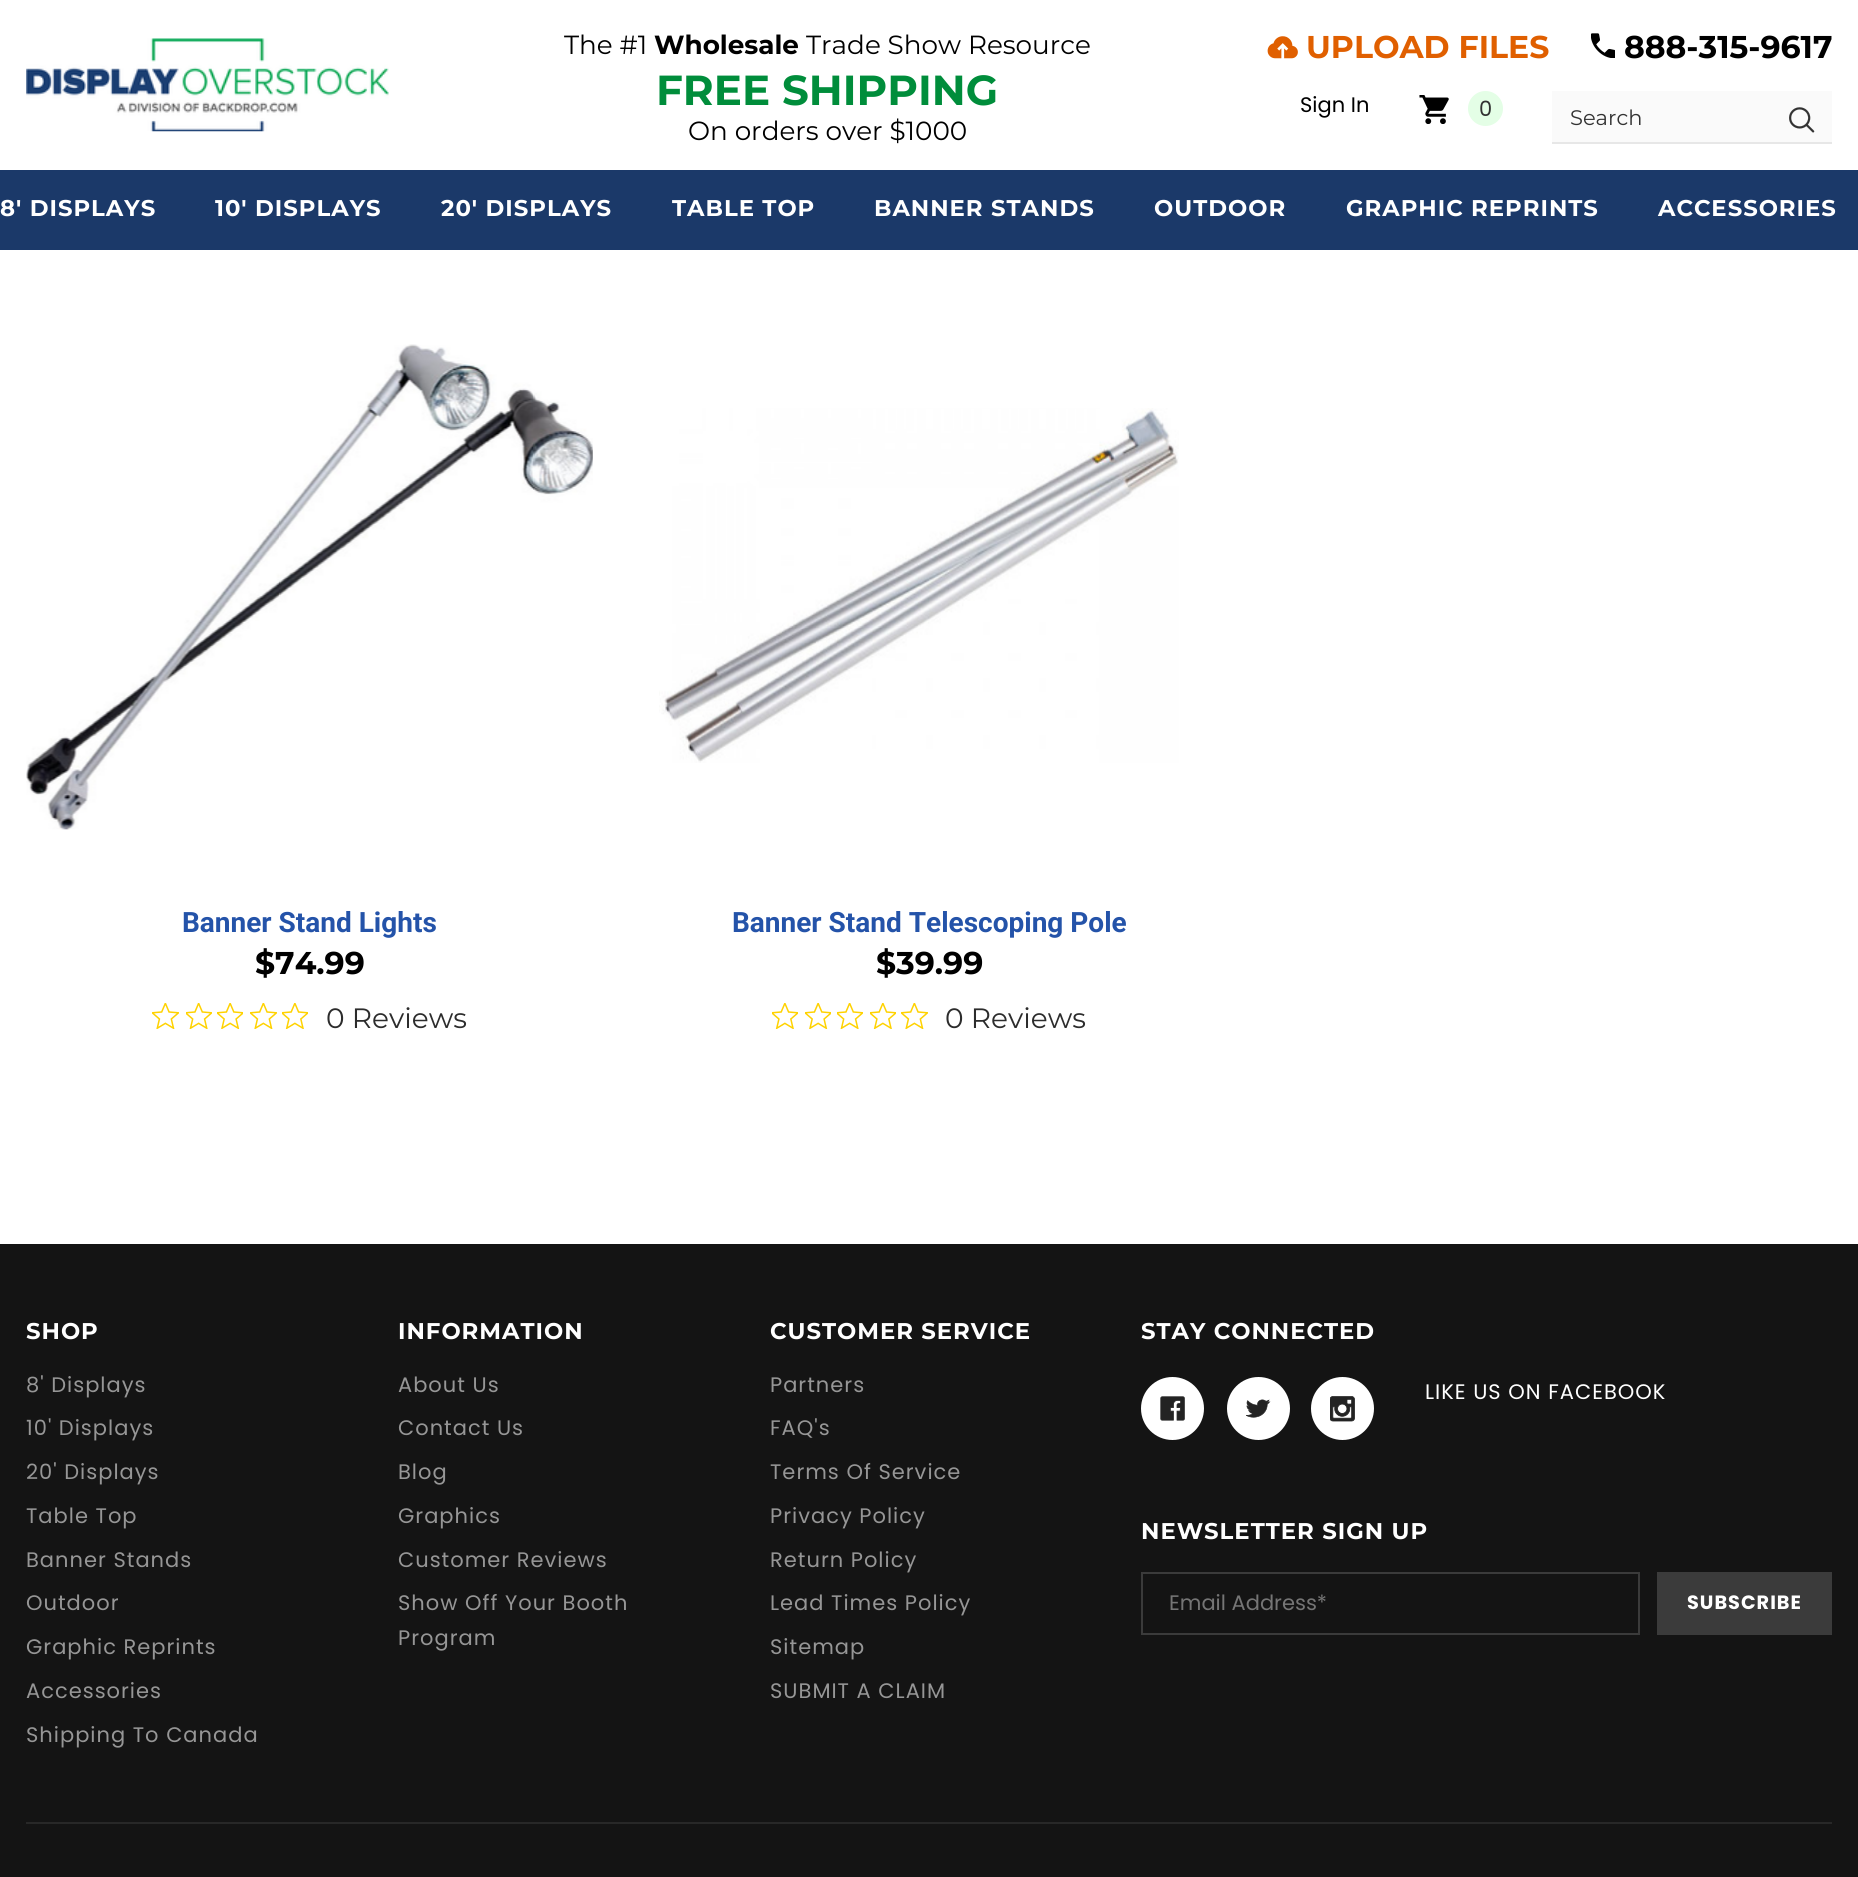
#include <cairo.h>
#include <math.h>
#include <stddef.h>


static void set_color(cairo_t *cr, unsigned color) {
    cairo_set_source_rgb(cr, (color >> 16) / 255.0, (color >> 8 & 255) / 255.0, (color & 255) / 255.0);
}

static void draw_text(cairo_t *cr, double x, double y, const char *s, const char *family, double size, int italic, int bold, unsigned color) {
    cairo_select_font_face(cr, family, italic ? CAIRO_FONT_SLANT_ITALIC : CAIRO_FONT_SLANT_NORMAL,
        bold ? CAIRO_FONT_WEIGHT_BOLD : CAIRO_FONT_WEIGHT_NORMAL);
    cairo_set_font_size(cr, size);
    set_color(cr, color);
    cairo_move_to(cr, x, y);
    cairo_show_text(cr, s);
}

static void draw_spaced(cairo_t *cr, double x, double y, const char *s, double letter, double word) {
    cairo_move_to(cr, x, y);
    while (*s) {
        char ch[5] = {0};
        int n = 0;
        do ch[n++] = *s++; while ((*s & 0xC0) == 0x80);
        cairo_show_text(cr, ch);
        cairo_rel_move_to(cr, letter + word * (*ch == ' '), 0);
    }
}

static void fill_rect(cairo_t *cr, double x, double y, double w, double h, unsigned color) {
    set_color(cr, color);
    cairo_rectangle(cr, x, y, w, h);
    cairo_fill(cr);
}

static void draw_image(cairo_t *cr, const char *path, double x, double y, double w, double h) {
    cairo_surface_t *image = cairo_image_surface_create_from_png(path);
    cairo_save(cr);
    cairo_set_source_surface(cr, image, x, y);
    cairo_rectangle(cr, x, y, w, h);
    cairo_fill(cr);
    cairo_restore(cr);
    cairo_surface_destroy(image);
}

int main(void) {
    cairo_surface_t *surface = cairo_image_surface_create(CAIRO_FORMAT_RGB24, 1858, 1877);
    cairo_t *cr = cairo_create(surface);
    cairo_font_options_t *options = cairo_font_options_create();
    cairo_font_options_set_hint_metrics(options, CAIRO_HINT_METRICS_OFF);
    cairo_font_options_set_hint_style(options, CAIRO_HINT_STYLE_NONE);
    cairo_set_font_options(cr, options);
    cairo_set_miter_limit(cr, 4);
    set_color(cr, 0xFFFFFF);
    cairo_paint(cr);
    draw_image(cr, "assets/img1.png", 26, 38, 363, 94);
    draw_text(cr, 564, 54, "The #1", "Montserrat Thin", 26.25, 0, 0, 0x000000);
    draw_text(cr, 654, 54, "Wholesale", "Montserrat", 26.25, 0, 1, 0x000000);
    draw_text(cr, 806, 54, "Trade Show Resource", "Montserrat Thin", 26.25, 0, 0, 0x000000);
    draw_text(cr, 656, 105, "FREE SHIPPING", "Montserrat", 42, 0, 1, 0x008D3B);
    draw_text(cr, 688, 140, "On orders over $1000", "Montserrat Thin", 26.25, 0, 0, 0x000000);
    draw_image(cr, "assets/img2.png", 1267, 36, 31, 23);
    draw_text(cr, 1306, 58, "UPLOAD FILES", "Montserrat", 31.5, 0, 1, 0xE05F00);
    draw_image(cr, "assets/img3.png", 1591, 33, 24, 25);
    draw_text(cr, 1624, 58, "888-315-9617", "Montserrat", 31.5, 0, 1, 0x000000);
    draw_text(cr, 1300, 112, "Sign In", "Poppins", 21, 0, 0, 0x000000);
    draw_image(cr, "assets/img4.png", 1419, 95, 30, 29);
    set_color(cr, 0xE4FEE6);
    cairo_arc(cr, 1485.5, 108.5, 17.5, 0, 2 * M_PI);
    cairo_fill(cr);
    draw_text(cr, 1479, 116, "0", "Poppins", 21, 0, 0, 0x323232);
    fill_rect(cr, 1552, 91, 280, 51, 0xFAFAFA);
    fill_rect(cr, 1552, 142, 280, 2, 0xE7E7E7);
    draw_text(cr, 1570, 125, "Search", "Montserrat Thin", 21, 0, 0, 0x323232);
    draw_image(cr, "assets/img5.png", 1789, 107, 26, 26);
    fill_rect(cr, 0, 170, 1858, 80, 0x1B3969);
    cairo_select_font_face(cr, "Montserrat", CAIRO_FONT_SLANT_NORMAL, CAIRO_FONT_WEIGHT_BOLD);
    cairo_set_font_size(cr, 22.75);
    set_color(cr, 0xFFFFFF);
    draw_spaced(cr, 0, 216, "8' DISPLAYS", 1, 0);
    draw_spaced(cr, 215, 216, "10' DISPLAYS", 1, 0);
    draw_spaced(cr, 441, 216, "20' DISPLAYS", 1, 0);
    draw_spaced(cr, 672, 216, "TABLE TOP", 1, 0);
    draw_spaced(cr, 874, 216, "BANNER STANDS", 1, 0);
    draw_spaced(cr, 1154, 216, "OUTDOOR", 1, 0);
    draw_spaced(cr, 1346, 216, "GRAPHIC REPRINTS", 1, 0);
    draw_spaced(cr, 1658, 216, "ACCESSORIES", 1, 0);
    draw_image(cr, "assets/img6.png", 26, 344, 567, 486);
    draw_text(cr, 182, 932, "Banner Stand Lights", "Roboto", 28, 0, 1, 0x2453A9);
    draw_text(cr, 255, 974, "$74.99", "Montserrat", 31.5, 0, 1, 0x000000);
    draw_image(cr, "assets/img7.png", 152, 1003, 27, 26);
    draw_image(cr, "assets/img8.png", 186, 1003, 26, 26);
    draw_image(cr, "assets/img9.png", 217, 1003, 26, 26);
    draw_image(cr, "assets/img7.png", 250, 1003, 27, 26);
    draw_image(cr, "assets/img10.png", 282, 1003, 26, 26);
    draw_text(cr, 326, 1028, "0 Reviews", "Montserrat Thin", 28, 0, 0, 0x2C2C2C);
    draw_image(cr, "assets/img11.png", 659, 408, 520, 355);
    draw_text(cr, 732, 932, "Banner Stand Telescoping Pole", "Roboto", 28, 0, 1, 0x2453A9);
    draw_text(cr, 876, 974, "$39.99", "Montserrat", 31.5, 0, 1, 0x000000);
    draw_image(cr, "assets/img10.png", 772, 1003, 26, 26);
    draw_image(cr, "assets/img9.png", 805, 1003, 26, 26);
    draw_image(cr, "assets/img8.png", 837, 1003, 26, 26);
    draw_image(cr, "assets/img10.png", 870, 1003, 26, 26);
    draw_image(cr, "assets/img7.png", 901, 1003, 27, 26);
    draw_text(cr, 945, 1028, "0 Reviews", "Montserrat Thin", 28, 0, 0, 0x2C2C2C);
    fill_rect(cr, 0, 1244, 1858, 633, 0x141414);
    cairo_select_font_face(cr, "Montserrat", CAIRO_FONT_SLANT_NORMAL, CAIRO_FONT_WEIGHT_BOLD);
    cairo_set_font_size(cr, 22.75);
    set_color(cr, 0xFFFFFF);
    draw_spaced(cr, 26, 1339, "SHOP", 1, 0);
    cairo_select_font_face(cr, "Poppins", CAIRO_FONT_SLANT_NORMAL, CAIRO_FONT_WEIGHT_NORMAL);
    cairo_set_font_size(cr, 21);
    set_color(cr, 0x969696);
    draw_spaced(cr, 26, 1392, "8' Displays", 1, 0);
    draw_spaced(cr, 26, 1435, "10' Displays", 1, 0);
    draw_spaced(cr, 26, 1479, "20' Displays", 1, 0);
    draw_spaced(cr, 26, 1523, "Table Top", 1, 0);
    draw_spaced(cr, 26, 1567, "Banner Stands", 1, 0);
    draw_spaced(cr, 26, 1610, "Outdoor", 1, 0);
    draw_spaced(cr, 26, 1654, "Graphic Reprints", 1, 0);
    draw_spaced(cr, 26, 1698, "Accessories", 1, 0);
    draw_spaced(cr, 26, 1742, "Shipping To Canada", 1, 0);
    cairo_select_font_face(cr, "Montserrat", CAIRO_FONT_SLANT_NORMAL, CAIRO_FONT_WEIGHT_BOLD);
    cairo_set_font_size(cr, 22.75);
    set_color(cr, 0xFFFFFF);
    draw_spaced(cr, 398, 1339, "INFORMATION", 1, 0);
    cairo_select_font_face(cr, "Poppins", CAIRO_FONT_SLANT_NORMAL, CAIRO_FONT_WEIGHT_NORMAL);
    cairo_set_font_size(cr, 21);
    set_color(cr, 0x969696);
    draw_spaced(cr, 398, 1392, "About Us", 1, 0);
    draw_spaced(cr, 398, 1435, "Contact Us", 1, 0);
    draw_spaced(cr, 398, 1479, "Blog", 1, 0);
    draw_spaced(cr, 398, 1523, "Graphics", 1, 0);
    draw_spaced(cr, 398, 1567, "Customer Reviews", 1, 0);
    draw_spaced(cr, 398, 1610, "Show Off Your Booth", 1, 0);
    draw_spaced(cr, 398, 1645, "Program", 1, 0);
    cairo_select_font_face(cr, "Montserrat", CAIRO_FONT_SLANT_NORMAL, CAIRO_FONT_WEIGHT_BOLD);
    cairo_set_font_size(cr, 22.75);
    set_color(cr, 0xFFFFFF);
    draw_spaced(cr, 770, 1339, "CUSTOMER SERVICE", 1, 0);
    cairo_select_font_face(cr, "Poppins", CAIRO_FONT_SLANT_NORMAL, CAIRO_FONT_WEIGHT_NORMAL);
    cairo_set_font_size(cr, 21);
    set_color(cr, 0x969696);
    draw_spaced(cr, 770, 1392, "Partners", 1, 0);
    draw_spaced(cr, 770, 1435, "FAQ's", 1, 0);
    draw_spaced(cr, 770, 1479, "Terms Of Service", 1, 0);
    draw_spaced(cr, 770, 1523, "Privacy Policy", 1, 0);
    draw_spaced(cr, 770, 1567, "Return Policy", 1, 0);
    draw_spaced(cr, 770, 1610, "Lead Times Policy", 1, 0);
    draw_spaced(cr, 770, 1654, "Sitemap", 1, 0);
    draw_spaced(cr, 770, 1698, "SUBMIT A CLAIM", 1, 0);
    cairo_select_font_face(cr, "Montserrat", CAIRO_FONT_SLANT_NORMAL, CAIRO_FONT_WEIGHT_BOLD);
    cairo_set_font_size(cr, 22.75);
    set_color(cr, 0xFFFFFF);
    draw_spaced(cr, 1141, 1339, "STAY CONNECTED", 1, 0);
    cairo_new_path(cr);
    cairo_arc(cr, 1172.5, 1408.5, 31.5, 0, 2 * M_PI);
    cairo_fill(cr);
    draw_image(cr, "assets/img12.png", 1160, 1396, 25, 25);
    cairo_arc(cr, 1258.5, 1408.5, 31.5, 0, 2 * M_PI);
    cairo_fill(cr);
    draw_image(cr, "assets/img13.png", 1246, 1399, 25, 19);
    cairo_arc(cr, 1342.5, 1408.5, 31.5, 0, 2 * M_PI);
    cairo_fill(cr);
    draw_image(cr, "assets/img14.png", 1330, 1396, 25, 26);
    cairo_select_font_face(cr, "Poppins", CAIRO_FONT_SLANT_NORMAL, CAIRO_FONT_WEIGHT_NORMAL);
    cairo_set_font_size(cr, 21);
    draw_spaced(cr, 1425, 1399, "LIKE US ON FACEBOOK", 1, 0);
    cairo_select_font_face(cr, "Montserrat", CAIRO_FONT_SLANT_NORMAL, CAIRO_FONT_WEIGHT_BOLD);
    cairo_set_font_size(cr, 22.75);
    draw_spaced(cr, 1141, 1539, "NEWSLETTER SIGN UP", 1, 0);
    cairo_rectangle(cr, 1142, 1573, 497, 61);
    set_color(cr, 0x3B3B3B);
    cairo_stroke(cr);
    draw_text(cr, 1169, 1610, "Email Address*", "Poppins", 21, 0, 0, 0x757575);
    set_color(cr, 0x3B3B3B);
    cairo_rectangle(cr, 1658, 1573, 173, 61);
    cairo_fill_preserve(cr);
    cairo_stroke(cr);
    cairo_select_font_face(cr, "Poppins", CAIRO_FONT_SLANT_NORMAL, CAIRO_FONT_WEIGHT_BOLD);
    cairo_set_font_size(cr, 19.25);
    set_color(cr, 0xFFFFFF);
    draw_spaced(cr, 1687, 1609, "SUBSCRIBE", 1, 0);
    fill_rect(cr, 26, 1822, 1806, 2, 0x282828);
    cairo_surface_write_to_png(surface, "output.png");
    cairo_font_options_destroy(options);
    cairo_destroy(cr);
    cairo_surface_destroy(surface);
    return 0;
}
